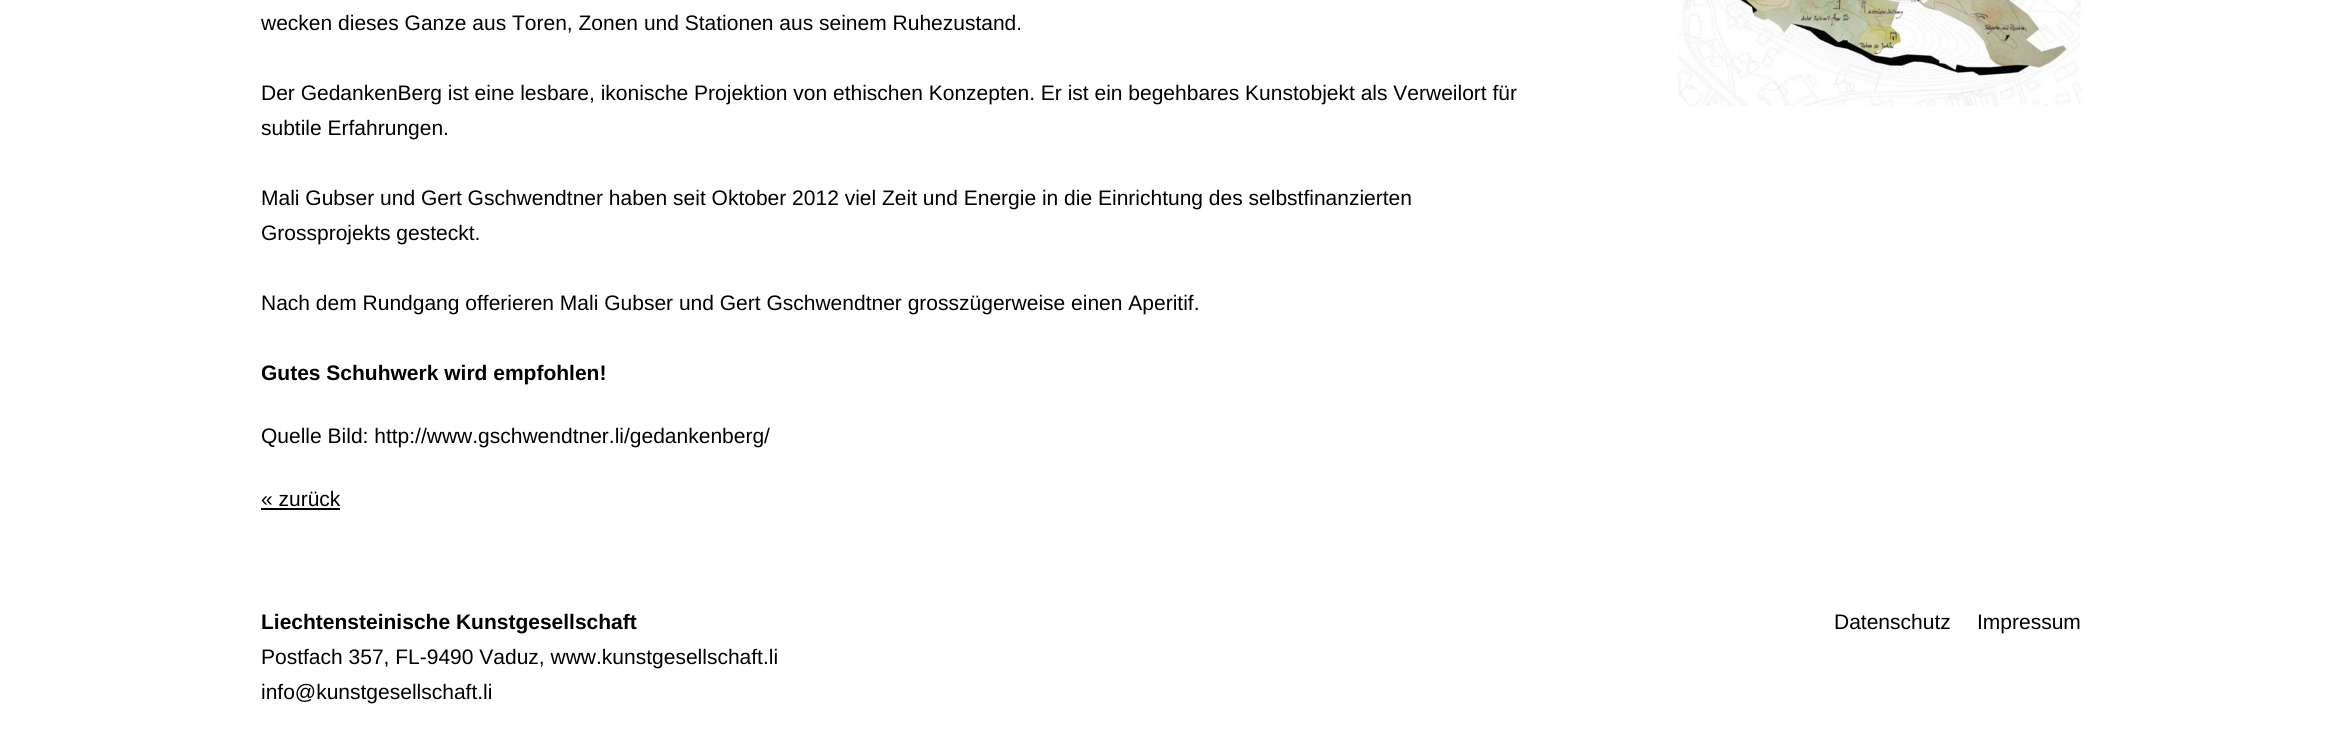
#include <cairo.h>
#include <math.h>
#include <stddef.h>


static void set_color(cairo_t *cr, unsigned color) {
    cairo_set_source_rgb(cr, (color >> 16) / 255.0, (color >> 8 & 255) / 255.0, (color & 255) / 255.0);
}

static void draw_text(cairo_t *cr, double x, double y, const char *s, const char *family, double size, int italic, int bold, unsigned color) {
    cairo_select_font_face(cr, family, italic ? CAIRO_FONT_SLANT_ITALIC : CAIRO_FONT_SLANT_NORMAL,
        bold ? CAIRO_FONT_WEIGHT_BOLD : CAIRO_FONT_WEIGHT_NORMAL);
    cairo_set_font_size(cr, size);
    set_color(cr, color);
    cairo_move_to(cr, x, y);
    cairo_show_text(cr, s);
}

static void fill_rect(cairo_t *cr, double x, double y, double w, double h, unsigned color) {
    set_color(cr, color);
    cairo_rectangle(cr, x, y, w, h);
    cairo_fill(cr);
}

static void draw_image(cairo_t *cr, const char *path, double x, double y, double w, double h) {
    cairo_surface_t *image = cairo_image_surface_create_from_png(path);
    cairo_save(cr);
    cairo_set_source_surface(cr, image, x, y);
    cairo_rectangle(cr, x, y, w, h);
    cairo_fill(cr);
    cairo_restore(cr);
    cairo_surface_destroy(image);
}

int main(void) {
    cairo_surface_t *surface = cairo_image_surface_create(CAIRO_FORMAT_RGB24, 2340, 741);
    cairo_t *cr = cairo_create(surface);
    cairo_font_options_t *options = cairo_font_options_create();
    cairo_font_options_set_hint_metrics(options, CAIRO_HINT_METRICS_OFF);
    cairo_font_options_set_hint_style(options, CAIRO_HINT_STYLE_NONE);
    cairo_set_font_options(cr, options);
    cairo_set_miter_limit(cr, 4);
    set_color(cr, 0xFFFFFF);
    cairo_paint(cr);
    draw_text(cr, 261, 30, "wecken dieses Ganze aus Toren, Zonen und Stationen aus seinem Ruhezustand.", "Liberation Sans", 21, 0, 0, 0x000000);
    draw_text(cr, 261, 100, "Der GedankenBerg ist eine lesbare, ikonische Projektion von ethischen Konzepten. Er ist ein begehbares Kunstobjekt als Verweilort für", "Liberation Sans", 21, 0, 0, 0x000000);
    draw_text(cr, 261, 135, "subtile Erfahrungen.", "Liberation Sans", 21, 0, 0, 0x000000);
    draw_text(cr, 261, 205, "Mali Gubser und Gert Gschwendtner haben seit Oktober 2012 viel Zeit und Energie in die Einrichtung des selbstfinanzierten", "Liberation Sans", 21, 0, 0, 0x000000);
    draw_text(cr, 261, 240, "Grossprojekts gesteckt.", "Liberation Sans", 21, 0, 0, 0x000000);
    draw_text(cr, 261, 310, "Nach dem Rundgang offerieren Mali Gubser und Gert Gschwendtner grosszügerweise einen Aperitif.", "Liberation Sans", 21, 0, 0, 0x000000);
    draw_text(cr, 261, 380, "Gutes Schuhwerk wird empfohlen!", "Liberation Sans", 21, 0, 1, 0x000000);
    draw_text(cr, 261, 443, "Quelle Bild: http://www.gschwendtner.li/gedankenberg/", "Liberation Sans", 21, 0, 0, 0x000000);
    draw_text(cr, 261, 506, "« zurück", "Liberation Sans", 21, 0, 0, 0x000000);
    fill_rect(cr, 261, 508, 79, 2, 0x000000);
    draw_image(cr, "assets/img1.png", 1678, 0, 403, 106);
    draw_text(cr, 261, 629, "Liechtensteinische Kunstgesellschaft", "Liberation Sans", 21, 0, 1, 0x000000);
    draw_text(cr, 261, 664, "Postfach 357, FL-9490 Vaduz, www.kunstgesellschaft.li", "Liberation Sans", 21, 0, 0, 0x000000);
    draw_text(cr, 261, 699, "info@kunstgesellschaft.li", "Liberation Sans", 21, 0, 0, 0x000000);
    draw_text(cr, 1834, 629, "Datenschutz", "Liberation Sans", 21, 0, 0, 0x000000);
    draw_text(cr, 1977, 629, "Impressum", "Liberation Sans", 21, 0, 0, 0x000000);
    cairo_surface_write_to_png(surface, "output.png");
    cairo_font_options_destroy(options);
    cairo_destroy(cr);
    cairo_surface_destroy(surface);
    return 0;
}
